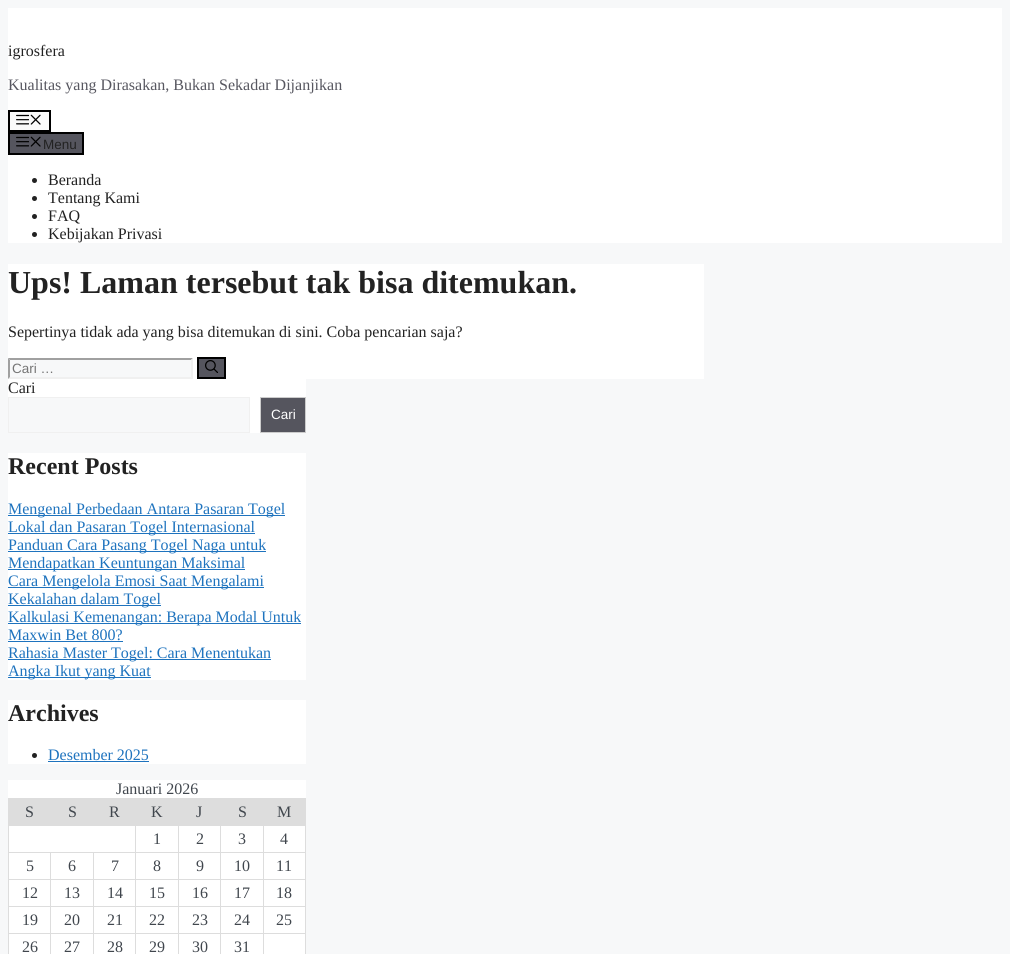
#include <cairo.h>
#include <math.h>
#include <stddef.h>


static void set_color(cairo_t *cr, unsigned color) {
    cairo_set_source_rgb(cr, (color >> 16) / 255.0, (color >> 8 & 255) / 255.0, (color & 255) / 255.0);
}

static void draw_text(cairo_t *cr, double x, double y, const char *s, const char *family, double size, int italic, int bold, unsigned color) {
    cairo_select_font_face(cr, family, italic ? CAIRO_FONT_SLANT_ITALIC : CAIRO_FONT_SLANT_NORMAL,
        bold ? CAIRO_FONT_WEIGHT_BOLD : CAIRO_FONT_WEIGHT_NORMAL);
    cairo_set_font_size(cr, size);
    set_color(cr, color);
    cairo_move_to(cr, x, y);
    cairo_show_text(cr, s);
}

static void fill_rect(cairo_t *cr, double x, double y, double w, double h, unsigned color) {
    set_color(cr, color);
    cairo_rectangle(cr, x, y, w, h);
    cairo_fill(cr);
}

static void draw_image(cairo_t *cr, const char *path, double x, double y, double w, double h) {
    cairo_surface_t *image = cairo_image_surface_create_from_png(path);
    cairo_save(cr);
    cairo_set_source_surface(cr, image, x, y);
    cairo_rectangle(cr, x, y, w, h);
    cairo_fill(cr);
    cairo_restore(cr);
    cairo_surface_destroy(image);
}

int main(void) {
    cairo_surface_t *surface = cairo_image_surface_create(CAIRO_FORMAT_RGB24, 1010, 954);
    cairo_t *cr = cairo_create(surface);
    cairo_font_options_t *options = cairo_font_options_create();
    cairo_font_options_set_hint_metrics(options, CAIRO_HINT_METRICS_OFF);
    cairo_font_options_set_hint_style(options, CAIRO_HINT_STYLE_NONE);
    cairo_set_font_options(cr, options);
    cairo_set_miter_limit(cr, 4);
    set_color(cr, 0xF7F8F9);
    cairo_paint(cr);
    fill_rect(cr, 8, 8, 994, 235, 0xFFFFFF);
    draw_text(cr, 8, 56, "igrosfera", "Liberation Serif", 16, 0, 0, 0x222222);
    draw_text(cr, 8, 90, "Kualitas yang Dirasakan, Bukan Sekadar Dijanjikan", "Liberation Serif", 16, 0, 0, 0x575760);
    set_color(cr, 0xFAFAFA);
    cairo_rectangle(cr, 9, 111, 41, 20);
    cairo_fill_preserve(cr);
    set_color(cr, 0x000000);
    cairo_stroke(cr);
    draw_image(cr, "assets/img1.png", 16, 114, 13, 11);
    draw_image(cr, "assets/img2.png", 30, 114, 11, 11);
    set_color(cr, 0x55555E);
    cairo_rectangle(cr, 9, 133, 74, 21);
    cairo_fill_preserve(cr);
    set_color(cr, 0x000000);
    cairo_stroke(cr);
    draw_image(cr, "assets/img3.png", 16, 136, 13, 11);
    draw_image(cr, "assets/img4.png", 30, 136, 11, 11);
    draw_text(cr, 43, 149, "Menu", "Liberation Sans", 13.5, 0, 0, 0x222222);
    cairo_new_path(cr);
    cairo_arc(cr, 34.5, 180.5, 2.5, 0, 2 * M_PI);
    cairo_fill(cr);
    draw_text(cr, 48, 185, "Beranda", "Liberation Serif", 16, 0, 0, 0x222222);
    cairo_new_path(cr);
    cairo_arc(cr, 34.5, 198.5, 2.5, 0, 2 * M_PI);
    cairo_fill(cr);
    draw_text(cr, 48, 203, "Tentang Kami", "Liberation Serif", 16, 0, 0, 0x222222);
    cairo_new_path(cr);
    cairo_arc(cr, 34.5, 216.5, 2.5, 0, 2 * M_PI);
    cairo_fill(cr);
    draw_text(cr, 48, 221, "FAQ", "Liberation Serif", 16, 0, 0, 0x222222);
    cairo_new_path(cr);
    cairo_arc(cr, 34.5, 234.5, 2.5, 0, 2 * M_PI);
    cairo_fill(cr);
    draw_text(cr, 48, 239, "Kebijakan Privasi", "Liberation Serif", 16, 0, 0, 0x222222);
    fill_rect(cr, 8, 264, 696, 115, 0xFFFFFF);
    draw_text(cr, 8, 293, "Ups! Laman tersebut tak bisa ditemukan.", "Liberation Serif", 32, 0, 1, 0x222222);
    draw_text(cr, 8, 337, "Sepertinya tidak ada yang bisa ditemukan di sini. Coba pencarian saja?", "Liberation Serif", 16, 0, 0, 0x222222);
    fill_rect(cr, 8, 358, 185, 21, 0xF7F8F9);
    set_color(cr, 0xA0A0A0);
    cairo_new_path(cr);
    cairo_move_to(cr, 8, 358);
    cairo_line_to(cr, 193, 358);
    cairo_line_to(cr, 191, 360);
    cairo_line_to(cr, 10, 360);
    cairo_close_path(cr);
    cairo_fill(cr);
    set_color(cr, 0xF0F0F0);
    cairo_new_path(cr);
    cairo_move_to(cr, 193, 358);
    cairo_line_to(cr, 193, 379);
    cairo_line_to(cr, 191, 377);
    cairo_line_to(cr, 191, 360);
    cairo_close_path(cr);
    cairo_fill(cr);
    cairo_new_path(cr);
    cairo_move_to(cr, 193, 379);
    cairo_line_to(cr, 8, 379);
    cairo_line_to(cr, 10, 377);
    cairo_line_to(cr, 191, 377);
    cairo_close_path(cr);
    cairo_fill(cr);
    set_color(cr, 0xA0A0A0);
    cairo_new_path(cr);
    cairo_move_to(cr, 8, 379);
    cairo_line_to(cr, 8, 358);
    cairo_line_to(cr, 10, 360);
    cairo_line_to(cr, 10, 377);
    cairo_close_path(cr);
    cairo_fill(cr);
    draw_text(cr, 12, 373, "Cari …", "Liberation Sans", 13.5, 0, 0, 0x757575);
    set_color(cr, 0x55555E);
    cairo_rectangle(cr, 198, 358, 27, 20);
    cairo_fill_preserve(cr);
    set_color(cr, 0x000000);
    cairo_stroke(cr);
    draw_image(cr, "assets/img5.png", 205, 360, 13, 13);
    fill_rect(cr, 8, 379, 298, 54, 0xFFFFFF);
    draw_text(cr, 8, 393, "Cari", "Liberation Serif", 16, 0, 0, 0x222222);
    set_color(cr, 0xF7F8F9);
    cairo_rectangle(cr, 8.5, 397.5, 241, 35);
    cairo_fill_preserve(cr);
    set_color(cr, 0xF0F0F0);
    cairo_set_line_width(cr, 1);
    cairo_stroke(cr);
    set_color(cr, 0x55555E);
    cairo_rectangle(cr, 260.5, 397.5, 45, 35);
    cairo_fill_preserve(cr);
    set_color(cr, 0xCCCCCC);
    cairo_stroke(cr);
    draw_text(cr, 271, 419, "Cari", "Liberation Sans", 13.5, 0, 0, 0xFFFFFF);
    fill_rect(cr, 8, 453, 298, 227, 0xFFFFFF);
    draw_text(cr, 8, 474, "Recent Posts", "Liberation Serif", 24, 0, 1, 0x222222);
    fill_rect(cr, 8, 515, 277, 1, 0x1E73BE);
    draw_text(cr, 8, 514, "Mengenal Perbedaan Antara Pasaran Togel", "Liberation Serif", 16, 0, 0, 0x1E73BE);
    fill_rect(cr, 8, 533, 247, 1, 0x1E73BE);
    draw_text(cr, 8, 532, "Lokal dan Pasaran Togel Internasional", "Liberation Serif", 16, 0, 0, 0x1E73BE);
    fill_rect(cr, 8, 551, 258, 1, 0x1E73BE);
    draw_text(cr, 8, 550, "Panduan Cara Pasang Togel Naga untuk", "Liberation Serif", 16, 0, 0, 0x1E73BE);
    fill_rect(cr, 8, 569, 237, 1, 0x1E73BE);
    draw_text(cr, 8, 568, "Mendapatkan Keuntungan Maksimal", "Liberation Serif", 16, 0, 0, 0x1E73BE);
    fill_rect(cr, 8, 587, 256, 1, 0x1E73BE);
    draw_text(cr, 8, 586, "Cara Mengelola Emosi Saat Mengalami", "Liberation Serif", 16, 0, 0, 0x1E73BE);
    fill_rect(cr, 8, 605, 153, 1, 0x1E73BE);
    draw_text(cr, 8, 604, "Kekalahan dalam Togel", "Liberation Serif", 16, 0, 0, 0x1E73BE);
    fill_rect(cr, 8, 623, 293, 1, 0x1E73BE);
    draw_text(cr, 8, 622, "Kalkulasi Kemenangan: Berapa Modal Untuk", "Liberation Serif", 16, 0, 0, 0x1E73BE);
    draw_text(cr, 8, 640, "Maxwin Bet 800?", "Liberation Serif", 16, 0, 0, 0x1E73BE);
    fill_rect(cr, 8, 641, 115, 1, 0x1E73BE);
    fill_rect(cr, 8, 659, 263, 1, 0x1E73BE);
    draw_text(cr, 8, 658, "Rahasia Master Togel: Cara Menentukan", "Liberation Serif", 16, 0, 0, 0x1E73BE);
    fill_rect(cr, 8, 677, 143, 1, 0x1E73BE);
    draw_text(cr, 8, 676, "Angka Ikut yang Kuat", "Liberation Serif", 16, 0, 0, 0x1E73BE);
    fill_rect(cr, 8, 700, 298, 64, 0xFFFFFF);
    draw_text(cr, 8, 721, "Archives", "Liberation Serif", 24, 0, 1, 0x222222);
    cairo_new_path(cr);
    cairo_arc(cr, 34.5, 755.5, 2.5, 0, 2 * M_PI);
    cairo_fill(cr);
    draw_text(cr, 48, 760, "Desember 2025", "Liberation Serif", 16, 0, 0, 0x1E73BE);
    fill_rect(cr, 48, 761, 101, 1, 0x1E73BE);
    fill_rect(cr, 8, 780, 298, 174, 0xFFFFFF);
    draw_text(cr, 116, 794, "Januari 2026", "Liberation Serif", 16, 0, 0, 0x40464D);
    fill_rect(cr, 9, 799, 127, 26, 0xDDDDDD);
    fill_rect(cr, 8, 798, 298, 1, 0xDDDDDD);
    fill_rect(cr, 263, 852, 43, 1, 0xDDDDDD);
    fill_rect(cr, 263, 879, 43, 1, 0xDDDDDD);
    fill_rect(cr, 263, 906, 43, 1, 0xDDDDDD);
    fill_rect(cr, 263, 933, 43, 1, 0xDDDDDD);
    fill_rect(cr, 263, 933, 1, 21, 0xDDDDDD);
    fill_rect(cr, 220, 933, 44, 1, 0xDDDDDD);
    fill_rect(cr, 263, 906, 1, 28, 0xDDDDDD);
    fill_rect(cr, 220, 906, 44, 1, 0xDDDDDD);
    fill_rect(cr, 263, 879, 1, 28, 0xDDDDDD);
    fill_rect(cr, 220, 879, 44, 1, 0xDDDDDD);
    fill_rect(cr, 263, 852, 1, 28, 0xDDDDDD);
    fill_rect(cr, 220, 852, 44, 1, 0xDDDDDD);
    fill_rect(cr, 220, 933, 1, 21, 0xDDDDDD);
    fill_rect(cr, 178, 933, 43, 1, 0xDDDDDD);
    fill_rect(cr, 220, 906, 1, 28, 0xDDDDDD);
    fill_rect(cr, 178, 906, 43, 1, 0xDDDDDD);
    fill_rect(cr, 220, 879, 1, 28, 0xDDDDDD);
    fill_rect(cr, 178, 879, 43, 1, 0xDDDDDD);
    fill_rect(cr, 220, 852, 1, 28, 0xDDDDDD);
    fill_rect(cr, 178, 852, 43, 1, 0xDDDDDD);
    fill_rect(cr, 178, 933, 1, 21, 0xDDDDDD);
    fill_rect(cr, 135, 933, 44, 1, 0xDDDDDD);
    fill_rect(cr, 178, 906, 1, 28, 0xDDDDDD);
    fill_rect(cr, 135, 906, 44, 1, 0xDDDDDD);
    fill_rect(cr, 178, 879, 1, 28, 0xDDDDDD);
    fill_rect(cr, 135, 879, 44, 1, 0xDDDDDD);
    fill_rect(cr, 178, 852, 1, 28, 0xDDDDDD);
    fill_rect(cr, 135, 852, 44, 1, 0xDDDDDD);
    fill_rect(cr, 135, 933, 1, 21, 0xDDDDDD);
    fill_rect(cr, 93, 933, 43, 1, 0xDDDDDD);
    fill_rect(cr, 135, 906, 1, 28, 0xDDDDDD);
    fill_rect(cr, 93, 906, 43, 1, 0xDDDDDD);
    fill_rect(cr, 135, 879, 1, 28, 0xDDDDDD);
    fill_rect(cr, 93, 879, 43, 1, 0xDDDDDD);
    fill_rect(cr, 135, 852, 1, 28, 0xDDDDDD);
    fill_rect(cr, 93, 852, 43, 1, 0xDDDDDD);
    fill_rect(cr, 135, 825, 1, 28, 0xDDDDDD);
    fill_rect(cr, 8, 825, 128, 1, 0xDDDDDD);
    fill_rect(cr, 93, 933, 1, 21, 0xDDDDDD);
    fill_rect(cr, 50, 933, 44, 1, 0xDDDDDD);
    fill_rect(cr, 93, 906, 1, 28, 0xDDDDDD);
    fill_rect(cr, 50, 906, 44, 1, 0xDDDDDD);
    fill_rect(cr, 93, 879, 1, 28, 0xDDDDDD);
    fill_rect(cr, 50, 879, 44, 1, 0xDDDDDD);
    fill_rect(cr, 93, 852, 1, 28, 0xDDDDDD);
    fill_rect(cr, 50, 852, 44, 1, 0xDDDDDD);
    fill_rect(cr, 50, 933, 1, 21, 0xDDDDDD);
    fill_rect(cr, 8, 933, 43, 1, 0xDDDDDD);
    fill_rect(cr, 50, 906, 1, 28, 0xDDDDDD);
    fill_rect(cr, 8, 906, 43, 1, 0xDDDDDD);
    fill_rect(cr, 50, 879, 1, 28, 0xDDDDDD);
    fill_rect(cr, 8, 879, 43, 1, 0xDDDDDD);
    fill_rect(cr, 50, 852, 1, 28, 0xDDDDDD);
    fill_rect(cr, 8, 852, 43, 1, 0xDDDDDD);
    fill_rect(cr, 8, 933, 1, 21, 0xDDDDDD);
    fill_rect(cr, 8, 906, 1, 28, 0xDDDDDD);
    fill_rect(cr, 8, 879, 1, 28, 0xDDDDDD);
    fill_rect(cr, 8, 852, 1, 28, 0xDDDDDD);
    fill_rect(cr, 8, 825, 1, 28, 0xDDDDDD);
    fill_rect(cr, 8, 798, 1, 28, 0xDDDDDD);
    draw_text(cr, 25, 817, "S", "Liberation Serif", 16, 0, 0, 0x40464D);
    draw_text(cr, 68, 817, "S", "Liberation Serif", 16, 0, 0, 0x40464D);
    draw_text(cr, 109, 817, "R", "Liberation Serif", 16, 0, 0, 0x40464D);
    fill_rect(cr, 136, 799, 170, 27, 0xDDDDDD);
    draw_text(cr, 151, 817, "K", "Liberation Serif", 16, 0, 0, 0x40464D);
    draw_text(cr, 196, 817, "J", "Liberation Serif", 16, 0, 0, 0x40464D);
    draw_text(cr, 238, 817, "S", "Liberation Serif", 16, 0, 0, 0x40464D);
    draw_text(cr, 277, 817, "M", "Liberation Serif", 16, 0, 0, 0x40464D);
    draw_text(cr, 153, 844, "1", "Liberation Serif", 16, 0, 0, 0x40464D);
    fill_rect(cr, 178, 825, 1, 28, 0xDDDDDD);
    draw_text(cr, 196, 844, "2", "Liberation Serif", 16, 0, 0, 0x40464D);
    fill_rect(cr, 220, 825, 1, 28, 0xDDDDDD);
    draw_text(cr, 238, 844, "3", "Liberation Serif", 16, 0, 0, 0x40464D);
    fill_rect(cr, 263, 825, 1, 28, 0xDDDDDD);
    draw_text(cr, 280, 844, "4", "Liberation Serif", 16, 0, 0, 0x40464D);
    draw_text(cr, 26, 871, "5", "Liberation Serif", 16, 0, 0, 0x40464D);
    draw_text(cr, 68, 871, "6", "Liberation Serif", 16, 0, 0, 0x40464D);
    draw_text(cr, 111, 871, "7", "Liberation Serif", 16, 0, 0, 0x40464D);
    draw_text(cr, 153, 871, "8", "Liberation Serif", 16, 0, 0, 0x40464D);
    draw_text(cr, 196, 871, "9", "Liberation Serif", 16, 0, 0, 0x40464D);
    draw_text(cr, 234, 871, "10", "Liberation Serif", 16, 0, 0, 0x40464D);
    fill_rect(cr, 305, 933, 1, 21, 0xDDDDDD);
    fill_rect(cr, 305, 906, 1, 28, 0xDDDDDD);
    fill_rect(cr, 305, 879, 1, 28, 0xDDDDDD);
    fill_rect(cr, 305, 825, 1, 55, 0xDDDDDD);
    draw_text(cr, 276, 871, "11", "Liberation Serif", 16, 0, 0, 0x40464D);
    draw_text(cr, 22, 898, "12", "Liberation Serif", 16, 0, 0, 0x40464D);
    draw_text(cr, 64, 898, "13", "Liberation Serif", 16, 0, 0, 0x40464D);
    draw_text(cr, 107, 898, "14", "Liberation Serif", 16, 0, 0, 0x40464D);
    draw_text(cr, 149, 898, "15", "Liberation Serif", 16, 0, 0, 0x40464D);
    draw_text(cr, 192, 898, "16", "Liberation Serif", 16, 0, 0, 0x40464D);
    draw_text(cr, 234, 898, "17", "Liberation Serif", 16, 0, 0, 0x40464D);
    draw_text(cr, 276, 898, "18", "Liberation Serif", 16, 0, 0, 0x40464D);
    draw_text(cr, 22, 925, "19", "Liberation Serif", 16, 0, 0, 0x40464D);
    draw_text(cr, 64, 925, "20", "Liberation Serif", 16, 0, 0, 0x40464D);
    draw_text(cr, 107, 925, "21", "Liberation Serif", 16, 0, 0, 0x40464D);
    draw_text(cr, 149, 925, "22", "Liberation Serif", 16, 0, 0, 0x40464D);
    draw_text(cr, 192, 925, "23", "Liberation Serif", 16, 0, 0, 0x40464D);
    draw_text(cr, 234, 925, "24", "Liberation Serif", 16, 0, 0, 0x40464D);
    draw_text(cr, 276, 925, "25", "Liberation Serif", 16, 0, 0, 0x40464D);
    draw_text(cr, 22, 952, "26", "Liberation Serif", 16, 0, 0, 0x40464D);
    draw_text(cr, 64, 952, "27", "Liberation Serif", 16, 0, 0, 0x40464D);
    draw_text(cr, 107, 952, "28", "Liberation Serif", 16, 0, 0, 0x40464D);
    draw_text(cr, 149, 952, "29", "Liberation Serif", 16, 0, 0, 0x40464D);
    draw_text(cr, 192, 952, "30", "Liberation Serif", 16, 0, 0, 0x40464D);
    draw_text(cr, 234, 952, "31", "Liberation Serif", 16, 0, 0, 0x40464D);
    cairo_surface_write_to_png(surface, "output.png");
    cairo_font_options_destroy(options);
    cairo_destroy(cr);
    cairo_surface_destroy(surface);
    return 0;
}
